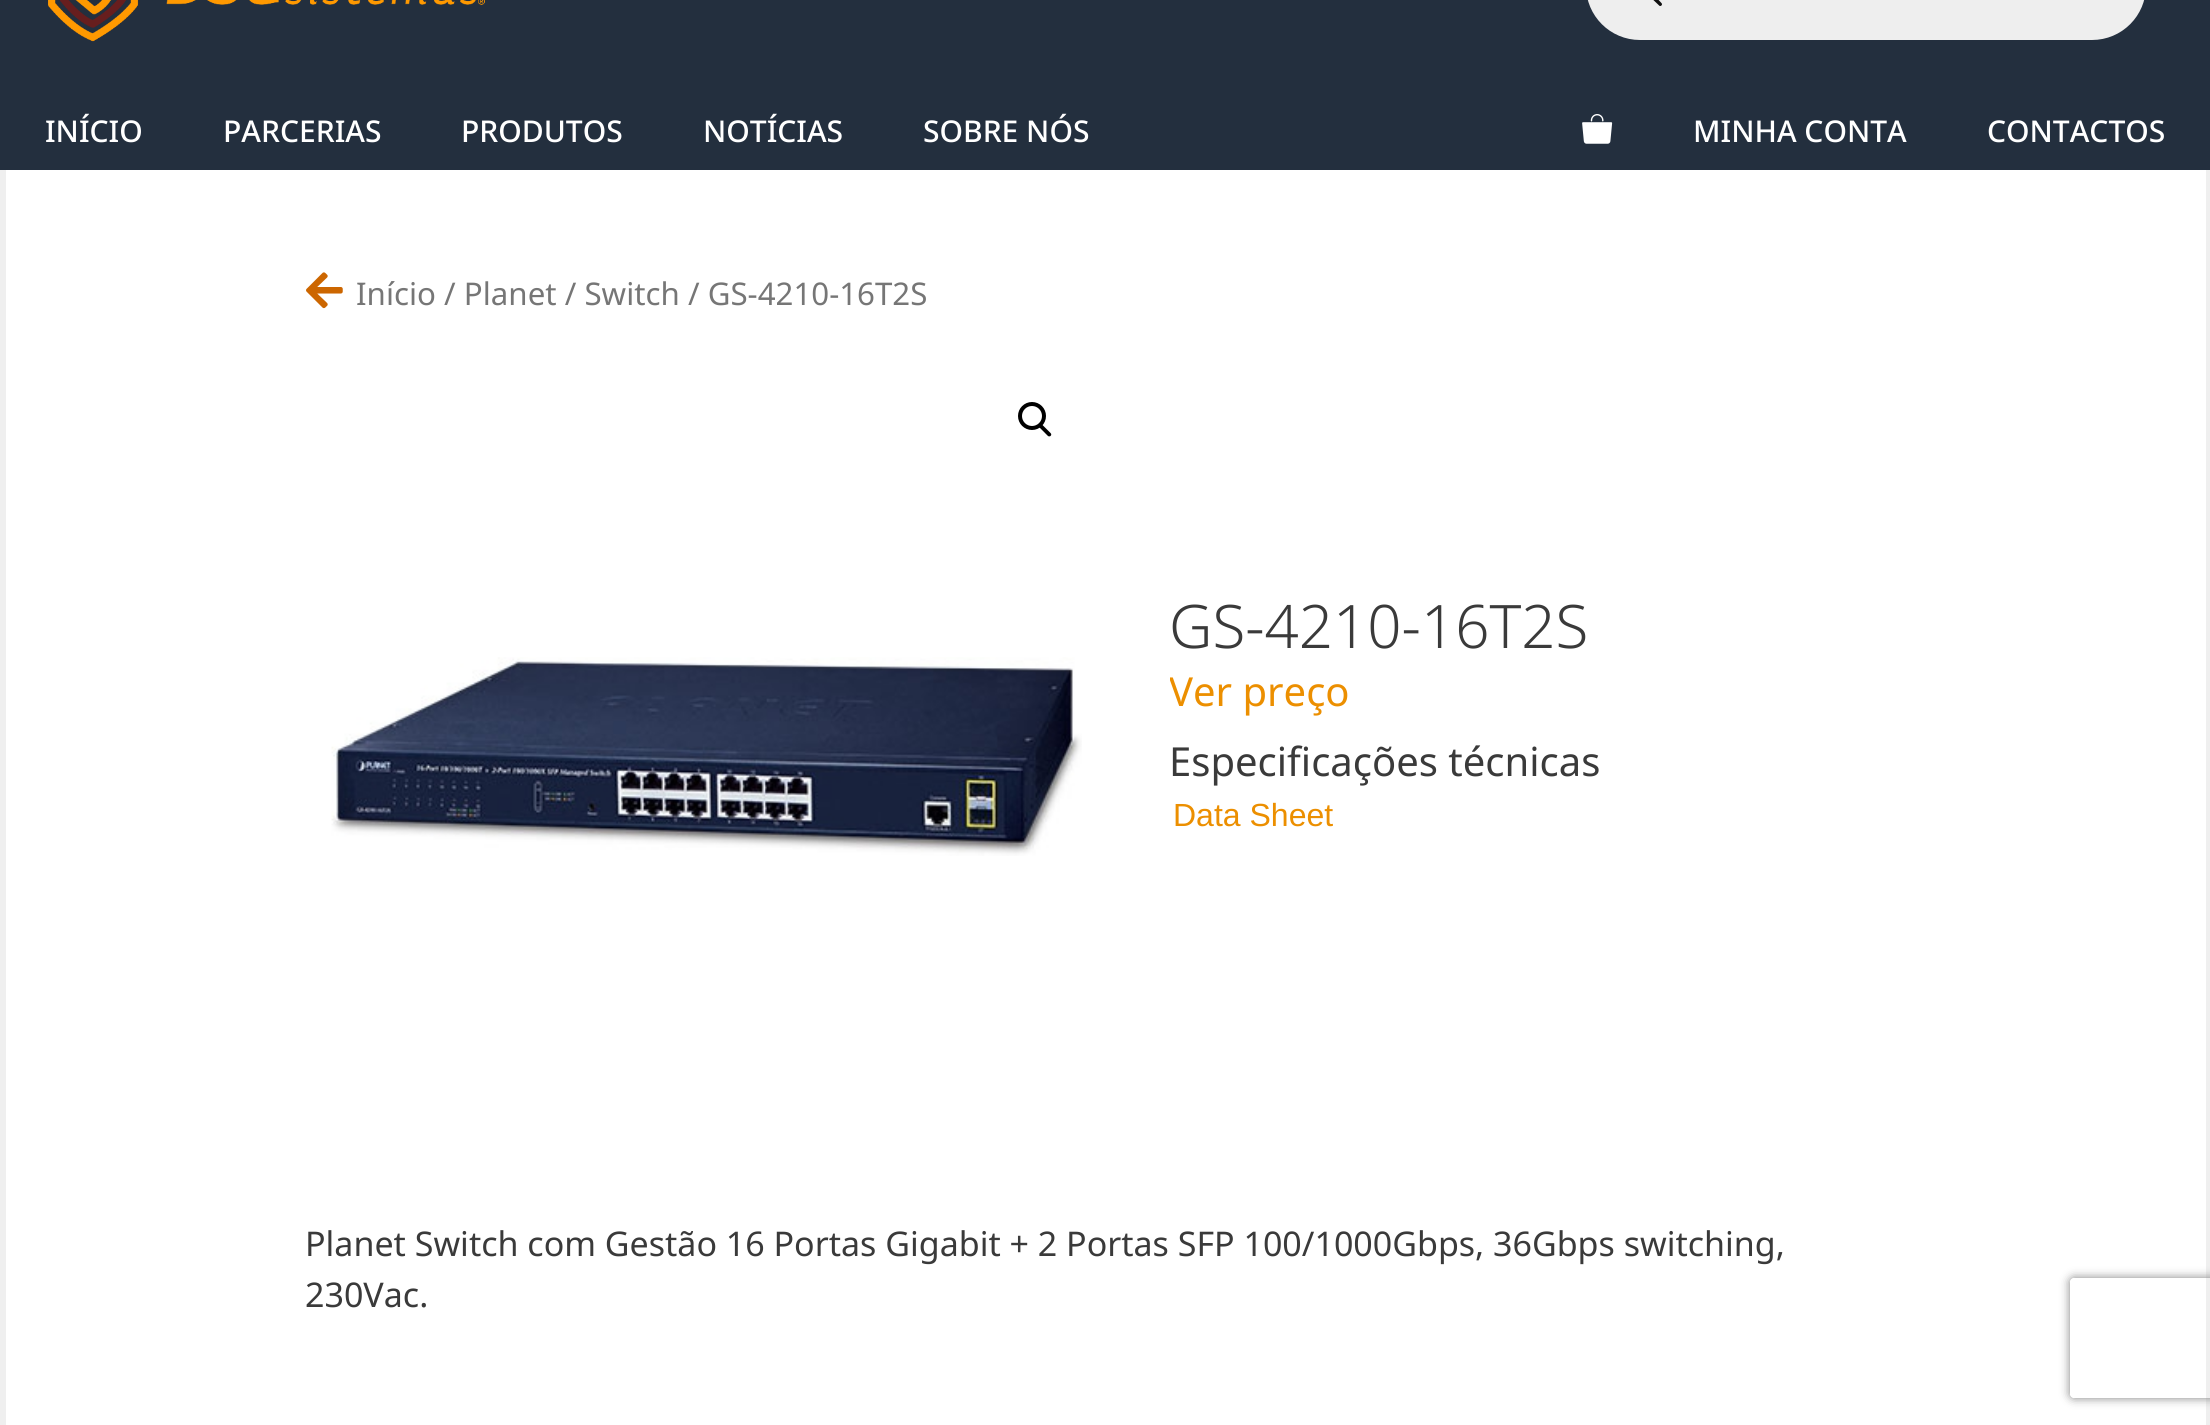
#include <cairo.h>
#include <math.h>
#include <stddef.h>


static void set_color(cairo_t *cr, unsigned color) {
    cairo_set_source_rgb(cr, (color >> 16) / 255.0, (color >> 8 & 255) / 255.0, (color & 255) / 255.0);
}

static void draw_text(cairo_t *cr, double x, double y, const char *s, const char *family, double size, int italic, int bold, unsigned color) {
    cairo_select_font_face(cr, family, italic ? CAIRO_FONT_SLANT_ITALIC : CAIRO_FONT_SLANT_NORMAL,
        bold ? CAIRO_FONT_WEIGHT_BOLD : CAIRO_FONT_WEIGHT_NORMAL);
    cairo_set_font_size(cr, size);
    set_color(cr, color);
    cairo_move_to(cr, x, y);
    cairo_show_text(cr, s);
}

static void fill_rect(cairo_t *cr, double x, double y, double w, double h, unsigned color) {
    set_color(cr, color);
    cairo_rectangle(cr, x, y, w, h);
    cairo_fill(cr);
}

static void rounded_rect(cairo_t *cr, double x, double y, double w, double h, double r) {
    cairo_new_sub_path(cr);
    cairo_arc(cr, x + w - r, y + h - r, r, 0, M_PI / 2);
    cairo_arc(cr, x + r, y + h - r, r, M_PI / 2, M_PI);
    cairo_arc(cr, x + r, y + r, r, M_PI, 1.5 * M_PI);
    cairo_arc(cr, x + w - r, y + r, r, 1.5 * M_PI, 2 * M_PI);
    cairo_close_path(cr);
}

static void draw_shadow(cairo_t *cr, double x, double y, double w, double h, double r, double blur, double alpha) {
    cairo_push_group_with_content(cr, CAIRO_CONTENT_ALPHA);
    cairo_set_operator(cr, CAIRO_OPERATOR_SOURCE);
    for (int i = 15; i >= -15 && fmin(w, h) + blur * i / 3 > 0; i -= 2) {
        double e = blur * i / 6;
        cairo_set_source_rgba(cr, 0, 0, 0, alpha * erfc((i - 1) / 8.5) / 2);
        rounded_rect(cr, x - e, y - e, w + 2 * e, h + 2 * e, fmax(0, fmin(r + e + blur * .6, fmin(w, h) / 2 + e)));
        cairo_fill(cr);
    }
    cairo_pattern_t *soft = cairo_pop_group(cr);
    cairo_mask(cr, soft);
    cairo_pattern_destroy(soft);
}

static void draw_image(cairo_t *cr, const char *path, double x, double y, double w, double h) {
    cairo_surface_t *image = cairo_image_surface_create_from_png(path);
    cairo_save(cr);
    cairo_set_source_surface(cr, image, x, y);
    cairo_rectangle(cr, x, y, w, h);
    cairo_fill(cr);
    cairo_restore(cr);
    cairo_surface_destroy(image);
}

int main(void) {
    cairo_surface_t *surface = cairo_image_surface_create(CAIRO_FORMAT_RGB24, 2210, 1425);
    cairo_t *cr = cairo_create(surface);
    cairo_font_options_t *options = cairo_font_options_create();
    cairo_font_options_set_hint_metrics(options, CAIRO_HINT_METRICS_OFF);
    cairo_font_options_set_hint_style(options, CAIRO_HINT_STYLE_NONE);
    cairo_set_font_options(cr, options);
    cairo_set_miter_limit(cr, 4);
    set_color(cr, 0xEFEFEF);
    cairo_paint(cr);
    fill_rect(cr, 0, 0, 2210, 170, 0x232F3E);
    draw_image(cr, "assets/img1.png", 48, 0, 437, 42);
    set_color(cr, 0xEEEEEE);
    rounded_rect(cr, 1586, -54, 560, 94, 54);
    cairo_fill(cr);
    draw_image(cr, "assets/img2.png", 1653, 0, 9, 6);
    draw_text(cr, 45, 142, "INÍCIO", "Noto Sans Medium", 30, 0, 0, 0xFFFFFF);
    draw_text(cr, 223, 142, "PARCERIAS", "Noto Sans Medium", 30, 0, 0, 0xFFFFFF);
    draw_text(cr, 461, 142, "PRODUTOS", "Noto Sans Medium", 30, 0, 0, 0xFFFFFF);
    draw_text(cr, 703, 142, "NOTÍCIAS", "Noto Sans Medium", 30, 0, 0, 0xFFFFFF);
    draw_text(cr, 923, 142, "SOBRE NÓS", "Noto Sans Medium", 30, 0, 0, 0xFFFFFF);
    draw_image(cr, "assets/img3.png", 1582, 114, 31, 30);
    draw_text(cr, 1693, 142, "MINHA CONTA", "Noto Sans Medium", 30, 0, 0, 0xFFFFFF);
    draw_text(cr, 1987, 142, "CONTACTOS", "Noto Sans Medium", 30, 0, 0, 0xFFFFFF);
    fill_rect(cr, 6, 170, 2200, 1255, 0xFFFFFF);
    draw_image(cr, "assets/img4.png", 306, 272, 37, 37);
    draw_text(cr, 356, 305, "Início / Planet / Switch / GS-4210-16T2S", "Noto Sans", 31.25, 0, 0, 0x767676);
    cairo_new_path(cr);
    cairo_arc(cr, 1032, 416, 12, 0, 2 * M_PI);
    set_color(cr, 0x000000);
    cairo_set_line_width(cr, 4);
    cairo_stroke(cr);
    cairo_new_path(cr);
    cairo_move_to(cr, 1039.5, 424.5);
    cairo_curve_to(cr, 1040, 423.5, 1041.5, 423.5, 1042, 424.5);
    cairo_line_to(cr, 1050.5, 433);
    cairo_curve_to(cr, 1051.5, 434, 1051.5, 435, 1050.5, 436);
    cairo_curve_to(cr, 1050, 436.5, 1048.5, 436.5, 1048, 436);
    cairo_line_to(cr, 1039.5, 427.5);
    cairo_curve_to(cr, 1038.5, 426.5, 1038.5, 425.5, 1039.5, 424.5);
    cairo_close_path(cr);
    cairo_fill(cr);
    draw_image(cr, "assets/img5.png", 331, 657, 751, 199);
    draw_text(cr, 1169, 648, "GS-4210-16T2S", "Noto Sans Light", 60, 0, 0, 0x3A3A3A);
    cairo_save(cr);
    cairo_rectangle(cr, 1170, 590, 430, 308);
    cairo_clip(cr);
    draw_text(cr, 1169, 706, "Ver preço", "Noto Sans", 40, 0, 0, 0xEC8F00);
    cairo_restore(cr);
    draw_text(cr, 1169, 776, "Especificações técnicas", "Noto Sans", 40, 0, 0, 0x3A3A3A);
    draw_text(cr, 1173, 826, "Data Sheet", "Liberation Sans", 32, 0, 0, 0xEC8F00);
    draw_text(cr, 305, 1256, "Planet Switch com Gestão 16 Portas Gigabit + 2 Portas SFP 100/1000Gbps, 36Gbps switching,", "Noto Sans", 34, 0, 0, 0x3A3A3A);
    draw_text(cr, 305, 1307, "230Vac.", "Noto Sans", 34, 0, 0, 0x3A3A3A);
    cairo_save(cr);
    cairo_set_fill_rule(cr, CAIRO_FILL_RULE_EVEN_ODD);
    cairo_new_path(cr);
    cairo_move_to(cr, 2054, 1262);
    cairo_line_to(cr, 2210, 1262);
    cairo_line_to(cr, 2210, 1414);
    cairo_line_to(cr, 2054, 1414);
    cairo_close_path(cr);
    cairo_move_to(cr, 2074, 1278);
    cairo_line_to(cr, 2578, 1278);
    cairo_curve_to(cr, 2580, 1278, 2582, 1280, 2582, 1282);
    cairo_line_to(cr, 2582, 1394);
    cairo_curve_to(cr, 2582, 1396, 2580, 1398, 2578, 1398);
    cairo_line_to(cr, 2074, 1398);
    cairo_curve_to(cr, 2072, 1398, 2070, 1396, 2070, 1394);
    cairo_line_to(cr, 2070, 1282);
    cairo_curve_to(cr, 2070, 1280, 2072, 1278, 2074, 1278);
    cairo_close_path(cr);
    cairo_clip(cr);
    set_color(cr, 0x808080);
    draw_shadow(cr, 2070, 1278, 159, 120, 4, 5, 1);
    cairo_restore(cr);
    cairo_surface_write_to_png(surface, "output.png");
    cairo_font_options_destroy(options);
    cairo_destroy(cr);
    cairo_surface_destroy(surface);
    return 0;
}
